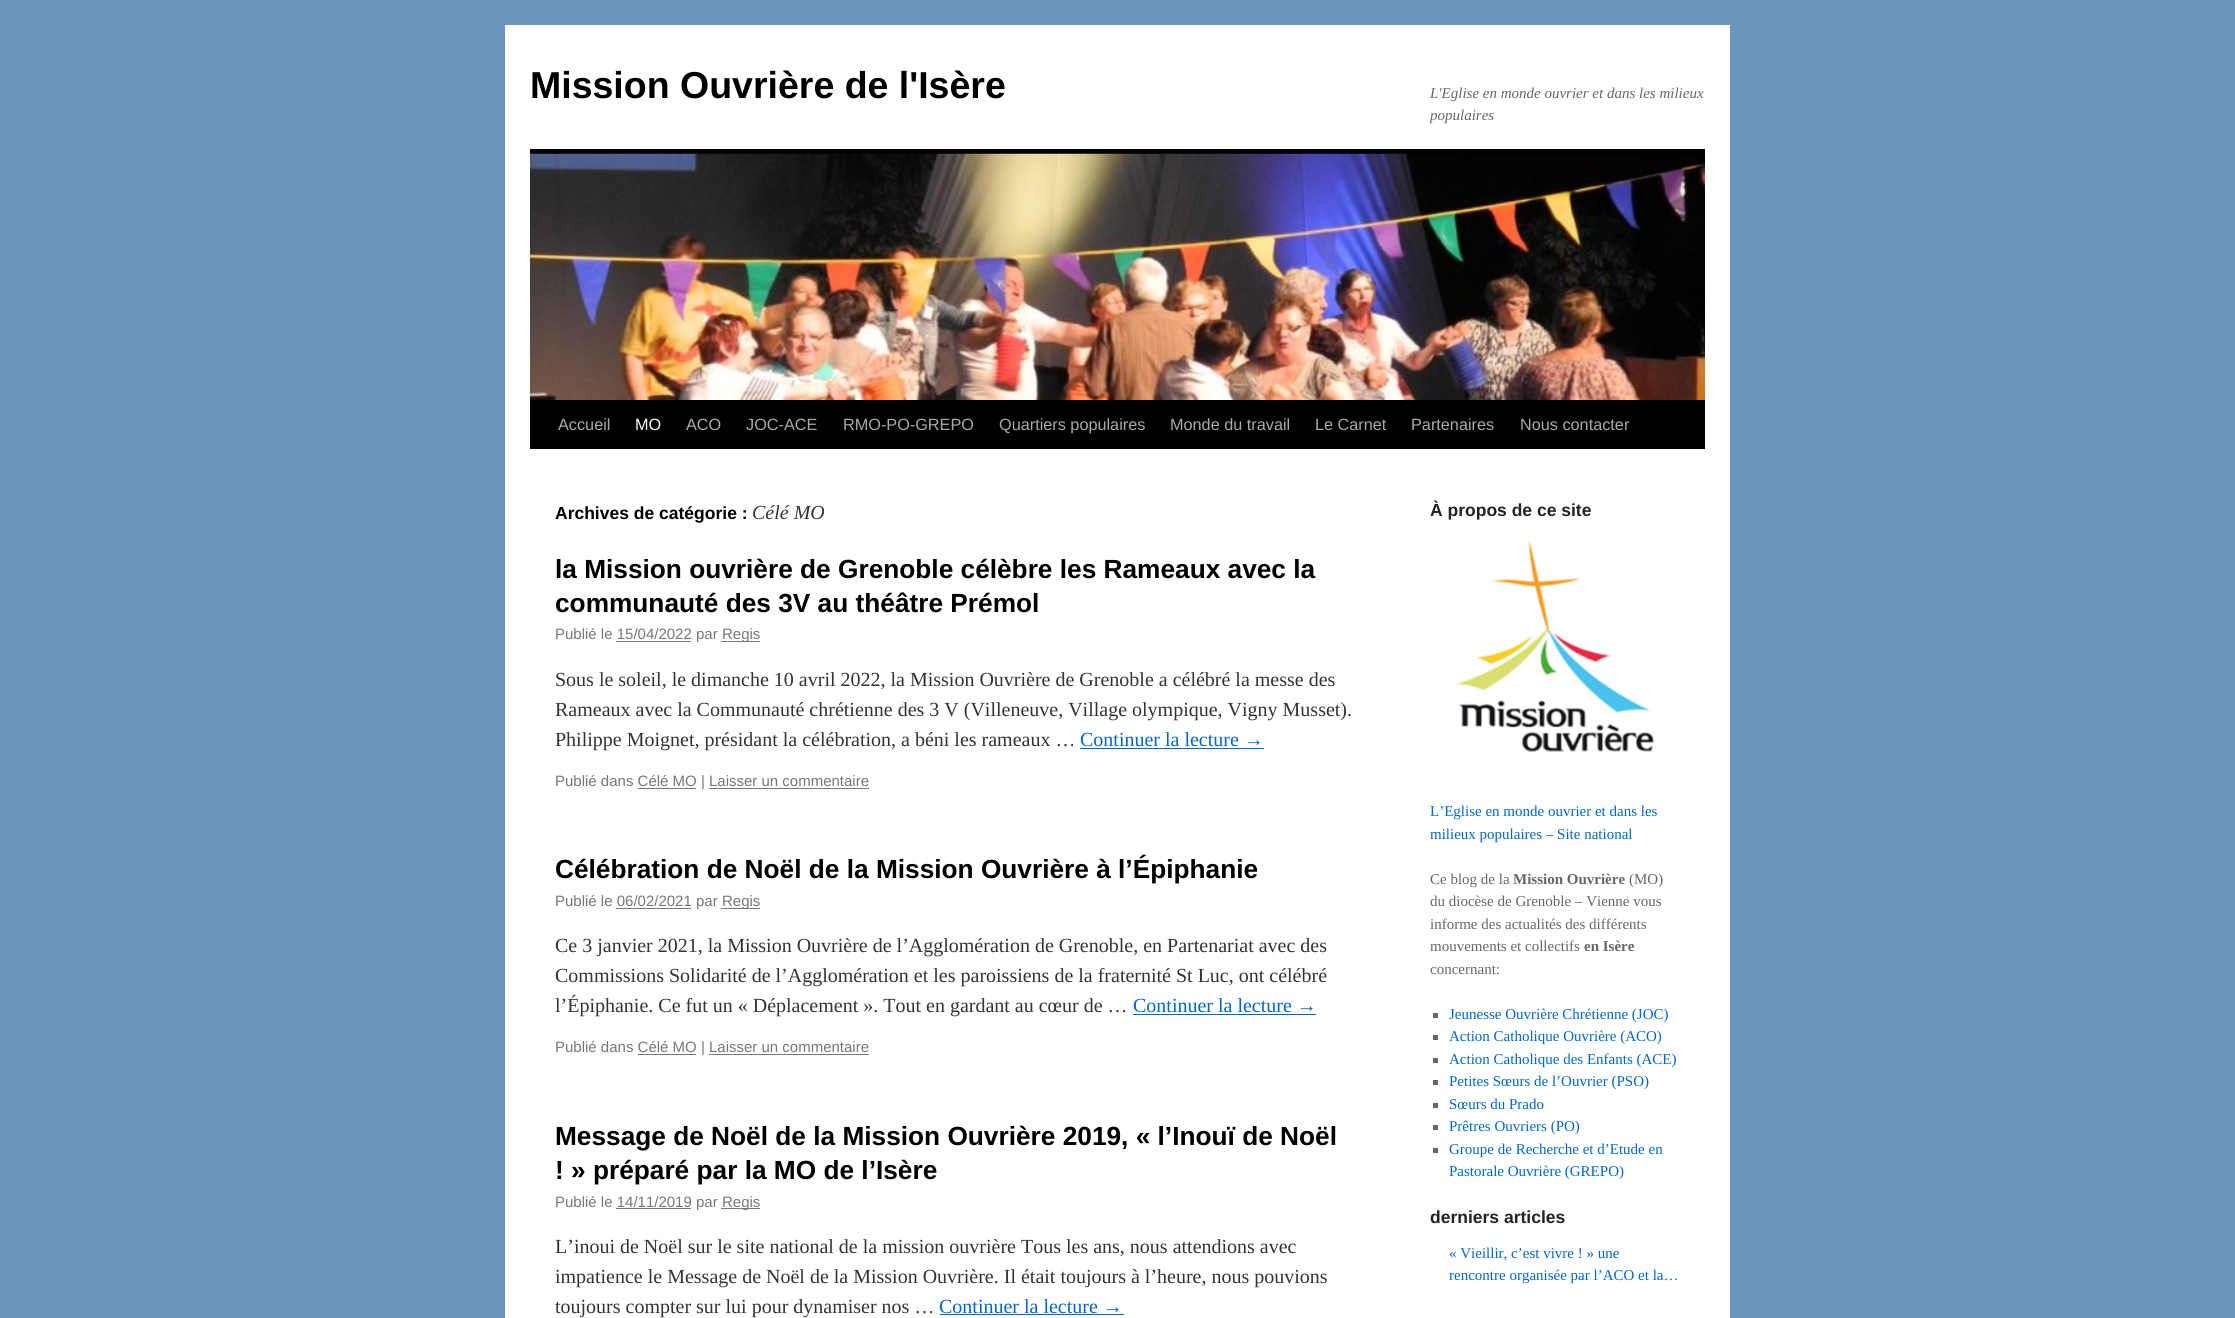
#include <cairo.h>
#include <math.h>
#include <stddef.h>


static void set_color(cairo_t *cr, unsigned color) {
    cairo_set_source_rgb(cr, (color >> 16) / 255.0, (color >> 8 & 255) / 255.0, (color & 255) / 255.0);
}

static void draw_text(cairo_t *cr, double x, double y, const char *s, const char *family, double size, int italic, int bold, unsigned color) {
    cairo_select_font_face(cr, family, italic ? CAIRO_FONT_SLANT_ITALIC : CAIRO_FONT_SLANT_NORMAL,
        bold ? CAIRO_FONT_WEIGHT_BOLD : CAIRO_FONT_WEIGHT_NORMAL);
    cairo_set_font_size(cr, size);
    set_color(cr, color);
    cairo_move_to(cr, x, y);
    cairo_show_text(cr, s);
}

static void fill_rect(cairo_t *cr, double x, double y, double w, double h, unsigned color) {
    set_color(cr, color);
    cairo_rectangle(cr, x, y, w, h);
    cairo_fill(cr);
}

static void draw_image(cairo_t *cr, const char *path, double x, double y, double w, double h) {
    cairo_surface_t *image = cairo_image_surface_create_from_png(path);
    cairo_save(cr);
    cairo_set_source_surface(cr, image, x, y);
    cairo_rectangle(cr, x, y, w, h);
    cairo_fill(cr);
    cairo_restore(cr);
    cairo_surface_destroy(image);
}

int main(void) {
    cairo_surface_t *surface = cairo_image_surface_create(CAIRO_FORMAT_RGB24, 2235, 1318);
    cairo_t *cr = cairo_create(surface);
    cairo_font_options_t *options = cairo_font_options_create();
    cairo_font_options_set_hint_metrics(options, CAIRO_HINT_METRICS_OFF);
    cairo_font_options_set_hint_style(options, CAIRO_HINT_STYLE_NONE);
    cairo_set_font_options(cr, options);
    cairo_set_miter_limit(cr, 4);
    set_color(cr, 0x6B95BF);
    cairo_paint(cr);
    fill_rect(cr, 505, 25, 1225, 1293, 0xFFFFFF);
    draw_text(cr, 530, 98, "Mission Ouvrière de l'Isère", "Liberation Sans", 37.5, 0, 1, 0x000000);
    draw_text(cr, 1430, 98, "L'Eglise en monde ouvrier et dans les milieux", "Liberation Serif", 15, 1, 0, 0x666666);
    draw_text(cr, 1430, 120, "populaires", "Liberation Serif", 15, 1, 0, 0x666666);
    fill_rect(cr, 530, 149, 1175, 5, 0x000000);
    fill_rect(cr, 530, 400, 1175, 49, 0x000000);
    draw_image(cr, "assets/img1.png", 530, 153, 1175, 247);
    draw_text(cr, 558, 430, "Accueil", "Liberation Sans", 16.25, 0, 0, 0xAAAAAA);
    draw_text(cr, 635, 430, "MO", "Liberation Sans", 16.25, 0, 0, 0xFFFFFF);
    draw_text(cr, 686, 430, "ACO", "Liberation Sans", 16.25, 0, 0, 0xAAAAAA);
    draw_text(cr, 746, 430, "JOC-ACE", "Liberation Sans", 16.25, 0, 0, 0xAAAAAA);
    draw_text(cr, 843, 430, "RMO-PO-GREPO", "Liberation Sans", 16.25, 0, 0, 0xAAAAAA);
    draw_text(cr, 999, 430, "Quartiers populaires", "Liberation Sans", 16.25, 0, 0, 0xAAAAAA);
    draw_text(cr, 1170, 430, "Monde du travail", "Liberation Sans", 16.25, 0, 0, 0xAAAAAA);
    draw_text(cr, 1315, 430, "Le Carnet", "Liberation Sans", 16.25, 0, 0, 0xAAAAAA);
    draw_text(cr, 1411, 430, "Partenaires", "Liberation Sans", 16.25, 0, 0, 0xAAAAAA);
    draw_text(cr, 1520, 430, "Nous contacter", "Liberation Sans", 16.25, 0, 0, 0xAAAAAA);
    draw_text(cr, 555, 519, "Archives de catégorie :", "Liberation Sans", 17.5, 0, 1, 0x000000);
    draw_text(cr, 752, 519, "Célé MO", "Liberation Serif", 20, 1, 0, 0x333333);
    draw_text(cr, 555, 578, "la Mission ouvrière de Grenoble célèbre les Rameaux avec la", "Liberation Sans", 26.25, 0, 1, 0x000000);
    draw_text(cr, 555, 612, "communauté des 3V au théâtre Prémol", "Liberation Sans", 26.25, 0, 1, 0x000000);
    draw_text(cr, 555, 639, "Publié le 15/04/2022 par", "Liberation Sans", 15, 0, 0, 0x777777);
    fill_rect(cr, 721, 641, 39, 1, 0x777777);
    draw_text(cr, 722, 639, "Regis", "Liberation Sans", 15, 0, 0, 0x777777);
    fill_rect(cr, 616, 641, 75, 1, 0x777777);
    draw_text(cr, 555, 686, "Sous le soleil, le dimanche 10 avril 2022, la Mission Ouvrière de Grenoble a célébré la messe des", "Liberation Serif", 20, 0, 0, 0x333333);
    draw_text(cr, 555, 716, "Rameaux avec la Communauté chrétienne des 3 V (Villeneuve, Village olympique, Vigny Musset).", "Liberation Serif", 20, 0, 0, 0x333333);
    draw_text(cr, 555, 746, "Philippe Moignet, présidant la célébration, a béni les rameaux …", "Liberation Serif", 20, 0, 0, 0x333333);
    draw_text(cr, 1080, 746, "Continuer la lecture →", "Liberation Serif", 20, 0, 0, 0x0066CC);
    fill_rect(cr, 1080, 748, 184, 1, 0x0066CC);
    draw_text(cr, 555, 786, "Publié dans Célé MO | Laisser un commentaire", "Liberation Sans", 15, 0, 0, 0x777777);
    fill_rect(cr, 638, 788, 58, 1, 0x777777);
    fill_rect(cr, 709, 788, 160, 1, 0x777777);
    draw_text(cr, 555, 878, "Célébration de Noël de la Mission Ouvrière à l’Épiphanie", "Liberation Sans", 26.25, 0, 1, 0x000000);
    draw_text(cr, 555, 906, "Publié le 06/02/2021 par", "Liberation Sans", 15, 0, 0, 0x777777);
    fill_rect(cr, 721, 908, 39, 1, 0x777777);
    draw_text(cr, 722, 906, "Regis", "Liberation Sans", 15, 0, 0, 0x777777);
    fill_rect(cr, 616, 908, 75, 1, 0x777777);
    draw_text(cr, 555, 952, "Ce 3 janvier 2021, la Mission Ouvrière de l’Agglomération de Grenoble, en Partenariat avec des", "Liberation Serif", 20, 0, 0, 0x333333);
    draw_text(cr, 555, 982, "Commissions Solidarité de l’Agglomération et les paroissiens de la fraternité St Luc, ont célébré", "Liberation Serif", 20, 0, 0, 0x333333);
    draw_text(cr, 555, 1012, "l’Épiphanie. Ce fut un « Déplacement ». Tout en gardant au cœur de …", "Liberation Serif", 20, 0, 0, 0x333333);
    draw_text(cr, 1133, 1012, "Continuer la lecture →", "Liberation Serif", 20, 0, 0, 0x0066CC);
    fill_rect(cr, 1133, 1014, 183, 1, 0x0066CC);
    draw_text(cr, 555, 1052, "Publié dans Célé MO | Laisser un commentaire", "Liberation Sans", 15, 0, 0, 0x777777);
    fill_rect(cr, 638, 1054, 58, 1, 0x777777);
    fill_rect(cr, 709, 1054, 160, 1, 0x777777);
    draw_text(cr, 555, 1145, "Message de Noël de la Mission Ouvrière 2019, « l’Inouï de Noël", "Liberation Sans", 26.25, 0, 1, 0x000000);
    draw_text(cr, 555, 1179, "! » préparé par la MO de l’Isère", "Liberation Sans", 26.25, 0, 1, 0x000000);
    draw_text(cr, 555, 1207, "Publié le 14/11/2019 par", "Liberation Sans", 15, 0, 0, 0x777777);
    fill_rect(cr, 721, 1208, 39, 1, 0x777777);
    draw_text(cr, 722, 1207, "Regis", "Liberation Sans", 15, 0, 0, 0x777777);
    fill_rect(cr, 616, 1208, 75, 1, 0x777777);
    draw_text(cr, 555, 1253, "L’inoui de Noël sur le site national de la mission ouvrière Tous les ans, nous attendions avec", "Liberation Serif", 20, 0, 0, 0x333333);
    draw_text(cr, 555, 1283, "impatience le Message de Noël de la Mission Ouvrière. Il était toujours à l’heure, nous pouvions", "Liberation Serif", 20, 0, 0, 0x333333);
    draw_text(cr, 555, 1313, "toujours compter sur lui pour dynamiser nos …", "Liberation Serif", 20, 0, 0, 0x333333);
    draw_text(cr, 939, 1313, "Continuer la lecture →", "Liberation Serif", 20, 0, 0, 0x0066CC);
    fill_rect(cr, 940, 1314, 184, 1, 0x0066CC);
    draw_text(cr, 1430, 516, "À propos de ce site", "Liberation Sans", 17.5, 0, 1, 0x222222);
    draw_image(cr, "assets/img2.png", 1456, 540, 199, 212);
    draw_text(cr, 1430, 816, "L’Eglise en monde ouvrier et dans les", "Liberation Serif", 15, 0, 0, 0x0066CC);
    draw_text(cr, 1430, 839, "milieux populaires – Site national", "Liberation Serif", 15, 0, 0, 0x0066CC);
    draw_text(cr, 1430, 884, "Ce blog de la", "Liberation Serif", 15, 0, 0, 0x666666);
    draw_text(cr, 1513, 884, "Mission Ouvrière", "Liberation Serif", 15, 0, 1, 0x666666);
    draw_text(cr, 1629, 884, "(MO)", "Liberation Serif", 15, 0, 0, 0x666666);
    draw_text(cr, 1430, 906, "du diocèse de Grenoble – Vienne vous", "Liberation Serif", 15, 0, 0, 0x666666);
    draw_text(cr, 1430, 929, "informe des actualités des différents", "Liberation Serif", 15, 0, 0, 0x666666);
    draw_text(cr, 1430, 951, "mouvements et collectifs", "Liberation Serif", 15, 0, 0, 0x666666);
    draw_text(cr, 1584, 951, "en Isère", "Liberation Serif", 15, 0, 1, 0x666666);
    draw_text(cr, 1430, 974, "concernant:", "Liberation Serif", 15, 0, 0, 0x666666);
    fill_rect(cr, 1433, 1013, 5, 5, 0x666666);
    draw_text(cr, 1449, 1019, "Jeunesse Ouvrière Chrétienne (JOC)", "Liberation Serif", 15, 0, 0, 0x0066CC);
    fill_rect(cr, 1433, 1035, 5, 5, 0x666666);
    draw_text(cr, 1449, 1041, "Action Catholique Ouvrière (ACO)", "Liberation Serif", 15, 0, 0, 0x0066CC);
    fill_rect(cr, 1433, 1058, 5, 5, 0x666666);
    draw_text(cr, 1449, 1064, "Action Catholique des Enfants (ACE)", "Liberation Serif", 15, 0, 0, 0x0066CC);
    fill_rect(cr, 1433, 1080, 5, 5, 0x666666);
    draw_text(cr, 1449, 1086, "Petites Sœurs de l’Ouvrier (PSO)", "Liberation Serif", 15, 0, 0, 0x0066CC);
    fill_rect(cr, 1433, 1103, 5, 5, 0x666666);
    draw_text(cr, 1449, 1109, "Sœurs du Prado", "Liberation Serif", 15, 0, 0, 0x0066CC);
    fill_rect(cr, 1433, 1125, 5, 5, 0x666666);
    draw_text(cr, 1449, 1131, "Prêtres Ouvriers (PO)", "Liberation Serif", 15, 0, 0, 0x0066CC);
    fill_rect(cr, 1433, 1148, 5, 5, 0x666666);
    draw_text(cr, 1449, 1154, "Groupe de Recherche et d’Etude en", "Liberation Serif", 15, 0, 0, 0x0066CC);
    draw_text(cr, 1449, 1176, "Pastorale Ouvrière (GREPO)", "Liberation Serif", 15, 0, 0, 0x0066CC);
    draw_text(cr, 1430, 1223, "derniers articles", "Liberation Sans", 17.5, 0, 1, 0x222222);
    draw_text(cr, 1449, 1258, "« Vieillir, c’est vivre ! » une", "Liberation Serif", 15, 0, 0, 0x0066CC);
    draw_text(cr, 1449, 1280, "rencontre organisée par l’ACO et la…", "Liberation Serif", 15, 0, 0, 0x0066CC);
    cairo_surface_write_to_png(surface, "output.png");
    cairo_font_options_destroy(options);
    cairo_destroy(cr);
    cairo_surface_destroy(surface);
    return 0;
}
